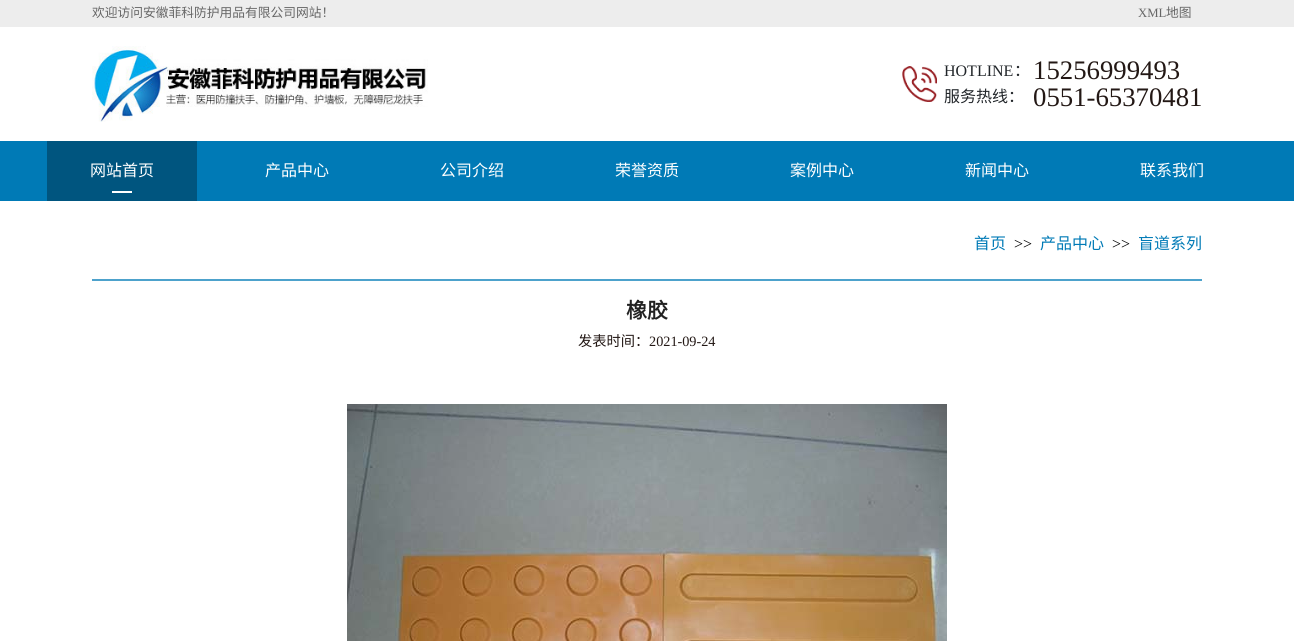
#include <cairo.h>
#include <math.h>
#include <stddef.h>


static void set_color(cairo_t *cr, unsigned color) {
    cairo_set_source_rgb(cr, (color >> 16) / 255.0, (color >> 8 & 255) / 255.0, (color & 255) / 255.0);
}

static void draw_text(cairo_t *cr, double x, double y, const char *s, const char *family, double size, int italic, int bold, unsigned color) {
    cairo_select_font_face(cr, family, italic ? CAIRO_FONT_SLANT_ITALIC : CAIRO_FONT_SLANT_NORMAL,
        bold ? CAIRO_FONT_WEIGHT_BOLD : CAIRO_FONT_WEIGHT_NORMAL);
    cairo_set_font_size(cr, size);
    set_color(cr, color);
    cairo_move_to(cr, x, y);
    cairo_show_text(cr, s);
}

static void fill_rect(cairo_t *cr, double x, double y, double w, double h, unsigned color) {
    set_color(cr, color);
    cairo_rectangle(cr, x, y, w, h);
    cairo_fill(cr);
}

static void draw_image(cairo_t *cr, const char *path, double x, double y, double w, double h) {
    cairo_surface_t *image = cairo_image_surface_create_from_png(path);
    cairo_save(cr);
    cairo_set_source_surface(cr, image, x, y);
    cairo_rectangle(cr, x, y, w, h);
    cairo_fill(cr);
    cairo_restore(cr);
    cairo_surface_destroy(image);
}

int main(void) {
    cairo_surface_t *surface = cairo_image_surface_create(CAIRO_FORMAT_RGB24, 1294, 641);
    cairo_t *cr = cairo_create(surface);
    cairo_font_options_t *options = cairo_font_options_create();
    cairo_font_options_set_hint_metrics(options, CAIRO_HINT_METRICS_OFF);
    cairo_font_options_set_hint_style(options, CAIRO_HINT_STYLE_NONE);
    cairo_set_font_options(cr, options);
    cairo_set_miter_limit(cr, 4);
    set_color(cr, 0xFFFFFF);
    cairo_paint(cr);
    fill_rect(cr, 0, 0, 1294, 27, 0xEDEDED);
    draw_text(cr, 92, 17, "欢迎访问安徽菲科防护用品有限公司网站！", "Noto Sans CJK SC", 12.75, 0, 0, 0x666666);
    draw_text(cr, 1138, 17, "XML", "Liberation Serif", 12.75, 0, 0, 0x666666);
    draw_text(cr, 1166, 17, "地图", "Noto Sans CJK SC", 12.75, 0, 0, 0x666666);
    draw_image(cr, "assets/img1.png", 92, 46, 336, 76);
    draw_image(cr, "assets/img2.png", 902, 66, 35, 36);
    draw_text(cr, 944, 76, "HOTLINE", "Liberation Serif", 16, 0, 0, 0x212529);
    draw_text(cr, 1014, 76, "：", "Noto Sans CJK SC", 16, 0, 0, 0x212529);
    draw_text(cr, 1033, 79, "15256999493", "Liberation Serif", 26.75, 0, 0, 0x231815);
    draw_text(cr, 944, 102, "服务热线：", "Noto Sans CJK SC", 16, 0, 0, 0x212529);
    draw_text(cr, 1033, 106, "0551-65370481", "Liberation Serif", 26.75, 0, 0, 0x231815);
    fill_rect(cr, 0, 141, 1294, 60, 0x007AB6);
    fill_rect(cr, 47, 141, 150, 60, 0x00557F);
    fill_rect(cr, 112, 191, 20, 2, 0xFFFFFF);
    draw_text(cr, 90, 176, "网站首页", "Noto Sans CJK SC", 16, 0, 0, 0xFFFFFF);
    draw_text(cr, 265, 176, "产品中心", "Noto Sans CJK SC", 16, 0, 0, 0xFFFFFF);
    draw_text(cr, 440, 176, "公司介绍", "Noto Sans CJK SC", 16, 0, 0, 0xFFFFFF);
    draw_text(cr, 615, 176, "荣誉资质", "Noto Sans CJK SC", 16, 0, 0, 0xFFFFFF);
    draw_text(cr, 790, 176, "案例中心", "Noto Sans CJK SC", 16, 0, 0, 0xFFFFFF);
    draw_text(cr, 965, 176, "新闻中心", "Noto Sans CJK SC", 16, 0, 0, 0xFFFFFF);
    draw_text(cr, 1140, 176, "联系我们", "Noto Sans CJK SC", 16, 0, 0, 0xFFFFFF);
    fill_rect(cr, 92, 279, 1110, 2, 0x4DA2CC);
    draw_text(cr, 974, 249, "首页", "Noto Sans CJK SC", 16, 0, 0, 0x007AB6);
    draw_text(cr, 1014, 249, ">>", "Liberation Serif", 16, 0, 0, 0x000000);
    draw_text(cr, 1040, 249, "产品中心", "Noto Sans CJK SC", 16, 0, 0, 0x007AB6);
    draw_text(cr, 1112, 249, ">>", "Liberation Serif", 16, 0, 0, 0x000000);
    draw_text(cr, 1138, 249, "盲道系列", "Noto Sans CJK SC", 16, 0, 0, 0x007AB6);
    draw_text(cr, 626, 318, "橡胶", "Noto Sans CJK SC", 21, 0, 1, 0x222222);
    draw_text(cr, 578, 346, "发表时间：", "Noto Sans CJK SC", 14.25, 0, 0, 0x231815);
    draw_text(cr, 649, 346, "2021-09-24", "Liberation Serif", 14.25, 0, 0, 0x231815);
    draw_image(cr, "assets/img3.png", 347, 404, 600, 237);
    cairo_surface_write_to_png(surface, "output.png");
    cairo_font_options_destroy(options);
    cairo_destroy(cr);
    cairo_surface_destroy(surface);
    return 0;
}
